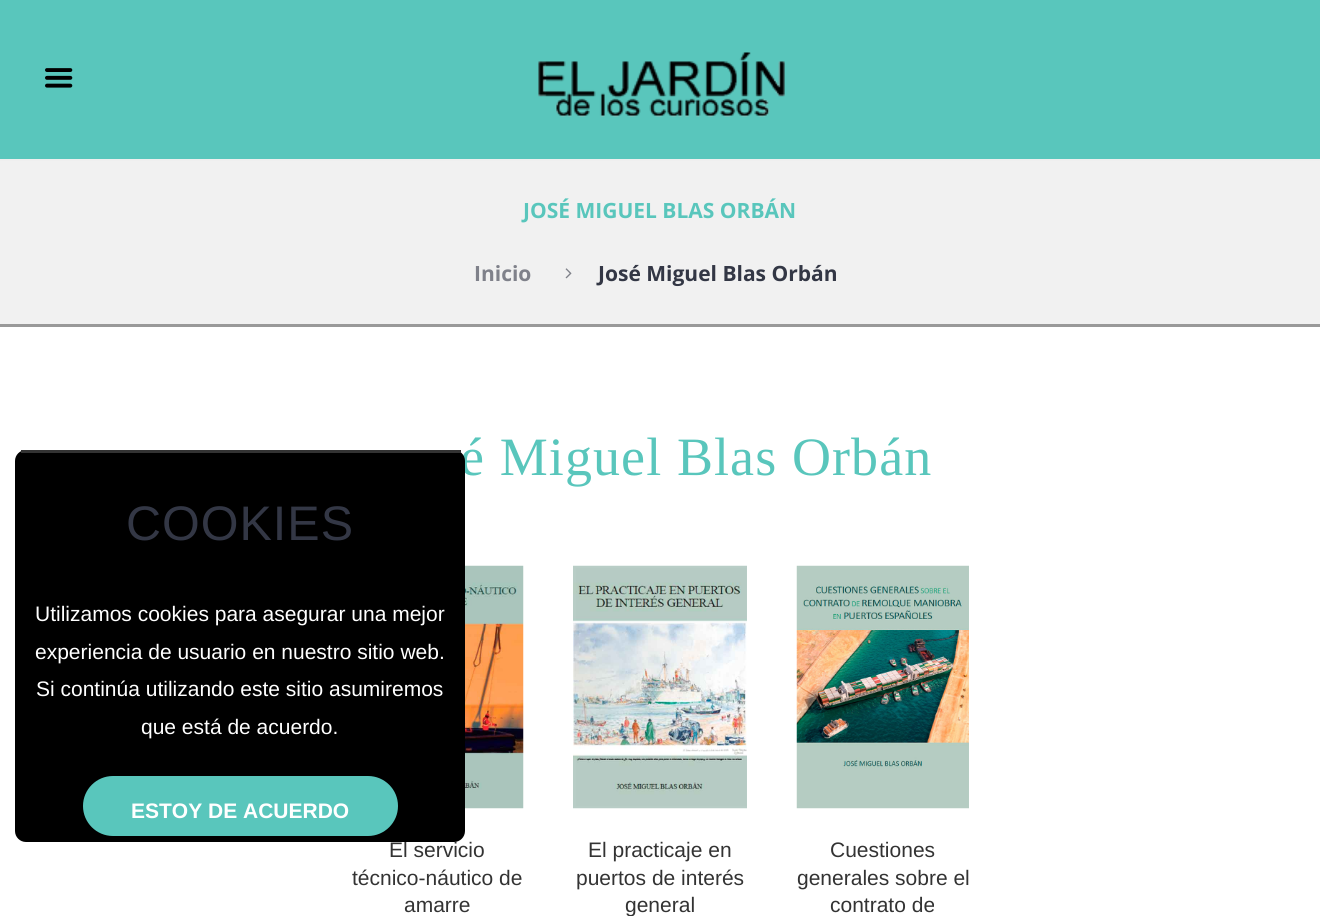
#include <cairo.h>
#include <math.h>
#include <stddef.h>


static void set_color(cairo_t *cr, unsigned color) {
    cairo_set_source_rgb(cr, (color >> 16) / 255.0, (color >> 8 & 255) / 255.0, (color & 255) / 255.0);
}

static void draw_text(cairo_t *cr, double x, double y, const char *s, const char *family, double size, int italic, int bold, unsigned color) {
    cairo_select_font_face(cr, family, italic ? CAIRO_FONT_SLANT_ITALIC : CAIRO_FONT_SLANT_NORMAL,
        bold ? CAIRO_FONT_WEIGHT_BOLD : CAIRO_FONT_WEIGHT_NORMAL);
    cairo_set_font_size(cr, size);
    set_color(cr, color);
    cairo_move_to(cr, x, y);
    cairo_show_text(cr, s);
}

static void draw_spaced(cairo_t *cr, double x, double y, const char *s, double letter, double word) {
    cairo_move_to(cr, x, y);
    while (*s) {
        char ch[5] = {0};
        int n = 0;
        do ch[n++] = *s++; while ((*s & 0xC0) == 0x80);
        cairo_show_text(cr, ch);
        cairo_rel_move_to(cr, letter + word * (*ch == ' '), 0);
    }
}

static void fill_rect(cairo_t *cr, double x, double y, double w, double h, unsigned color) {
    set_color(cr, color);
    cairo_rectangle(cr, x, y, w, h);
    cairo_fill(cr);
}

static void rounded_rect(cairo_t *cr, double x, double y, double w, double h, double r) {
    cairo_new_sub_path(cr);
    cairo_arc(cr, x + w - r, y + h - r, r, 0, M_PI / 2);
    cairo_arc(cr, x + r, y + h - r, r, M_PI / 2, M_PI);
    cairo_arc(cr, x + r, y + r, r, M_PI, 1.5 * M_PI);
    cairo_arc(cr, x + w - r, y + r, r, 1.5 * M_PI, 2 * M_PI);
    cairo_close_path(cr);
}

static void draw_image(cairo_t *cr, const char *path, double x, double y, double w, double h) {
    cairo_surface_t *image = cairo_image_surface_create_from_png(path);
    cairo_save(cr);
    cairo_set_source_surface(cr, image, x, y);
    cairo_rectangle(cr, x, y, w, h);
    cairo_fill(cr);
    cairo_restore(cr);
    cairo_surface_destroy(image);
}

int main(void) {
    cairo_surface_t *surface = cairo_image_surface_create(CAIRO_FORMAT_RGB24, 1320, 916);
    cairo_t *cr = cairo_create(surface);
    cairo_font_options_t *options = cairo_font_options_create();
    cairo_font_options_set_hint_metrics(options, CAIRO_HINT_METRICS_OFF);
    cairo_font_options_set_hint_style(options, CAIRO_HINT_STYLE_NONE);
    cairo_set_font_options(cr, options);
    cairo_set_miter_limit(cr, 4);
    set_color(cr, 0xFFFFFF);
    cairo_paint(cr);
    cairo_select_font_face(cr, "Liberation Serif", CAIRO_FONT_SLANT_NORMAL, CAIRO_FONT_WEIGHT_NORMAL);
    cairo_set_font_size(cr, 54);
    set_color(cr, 0x59C6BC);
    draw_spaced(cr, 460, 475, "é Miguel Blas Orbán", 1.1, 0);
    draw_text(cr, 389, 857, "El servicio", "Liberation Sans", 21, 0, 0, 0x333333);
    set_color(cr, 0x000000);
    rounded_rect(cr, 15, 450, 450, 392, 11);
    cairo_fill(cr);
    fill_rect(cr, 21, 450, 440, 3, 0x333333);
    cairo_set_font_size(cr, 48.5);
    set_color(cr, 0x333745);
    draw_spaced(cr, 126, 540, "COOKIES", 1, 0);
    draw_text(cr, 35, 621, "Utilizamos cookies para asegurar una mejor", "Liberation Sans", 21, 0, 0, 0xFFFFFF);
    draw_text(cr, 35, 659, "experiencia de usuario en nuestro sitio web.", "Liberation Sans", 21, 0, 0, 0xFFFFFF);
    draw_text(cr, 36, 696, "Si continúa utilizando este sitio asumiremos", "Liberation Sans", 21, 0, 0, 0xFFFFFF);
    draw_text(cr, 141, 734, "que está de acuerdo.", "Liberation Sans", 21, 0, 0, 0xFFFFFF);
    set_color(cr, 0x59C6BC);
    rounded_rect(cr, 83, 776, 315, 60, 30);
    cairo_fill(cr);
    draw_text(cr, 131, 818, "ESTOY DE ACUERDO", "Liberation Sans", 21, 0, 1, 0xFFFFFF);
    fill_rect(cr, 0, 0, 1320, 159, 0x59C6BC);
    draw_image(cr, "assets/img1.png", 45, 68, 28, 20);
    draw_image(cr, "assets/img2.png", 538, 52, 247, 65);
    fill_rect(cr, 0, 324, 1320, 3, 0x999999);
    fill_rect(cr, 0, 161, 1320, 163, 0xF1F1F1);
    fill_rect(cr, 0, 159, 1320, 2, 0xEFEFEF);
    draw_text(cr, 523, 218, "JOSÉ MIGUEL BLAS ORBÁN", "Open Sans", 21, 0, 1, 0x59C6BC);
    draw_text(cr, 474, 281, "Inicio", "Open Sans", 21, 0, 1, 0x7F818A);
    draw_image(cr, "assets/img3.png", 565, 268, 7, 11);
    draw_text(cr, 598, 281, "José Miguel Blas Orbán", "Open Sans", 21, 0, 1, 0x333745);
    draw_image(cr, "assets/img4.png", 465, 565, 59, 244);
    draw_text(cr, 352, 885, "técnico-náutico de", "Liberation Sans", 21, 0, 0, 0x333333);
    draw_text(cr, 404, 912, "amarre", "Liberation Sans", 21, 0, 0, 0x333333);
    draw_image(cr, "assets/img5.png", 573, 565, 174, 244);
    draw_text(cr, 588, 857, "El practicaje en", "Liberation Sans", 21, 0, 0, 0x333333);
    draw_text(cr, 576, 885, "puertos de interés", "Liberation Sans", 21, 0, 0, 0x333333);
    draw_text(cr, 625, 912, "general", "Liberation Sans", 21, 0, 0, 0x333333);
    draw_image(cr, "assets/img6.png", 796, 565, 173, 244);
    draw_text(cr, 830, 857, "Cuestiones", "Liberation Sans", 21, 0, 0, 0x333333);
    draw_text(cr, 797, 885, "generales sobre el", "Liberation Sans", 21, 0, 0, 0x333333);
    draw_text(cr, 830, 912, "contrato de", "Liberation Sans", 21, 0, 0, 0x333333);
    cairo_surface_write_to_png(surface, "output.png");
    cairo_font_options_destroy(options);
    cairo_destroy(cr);
    cairo_surface_destroy(surface);
    return 0;
}
